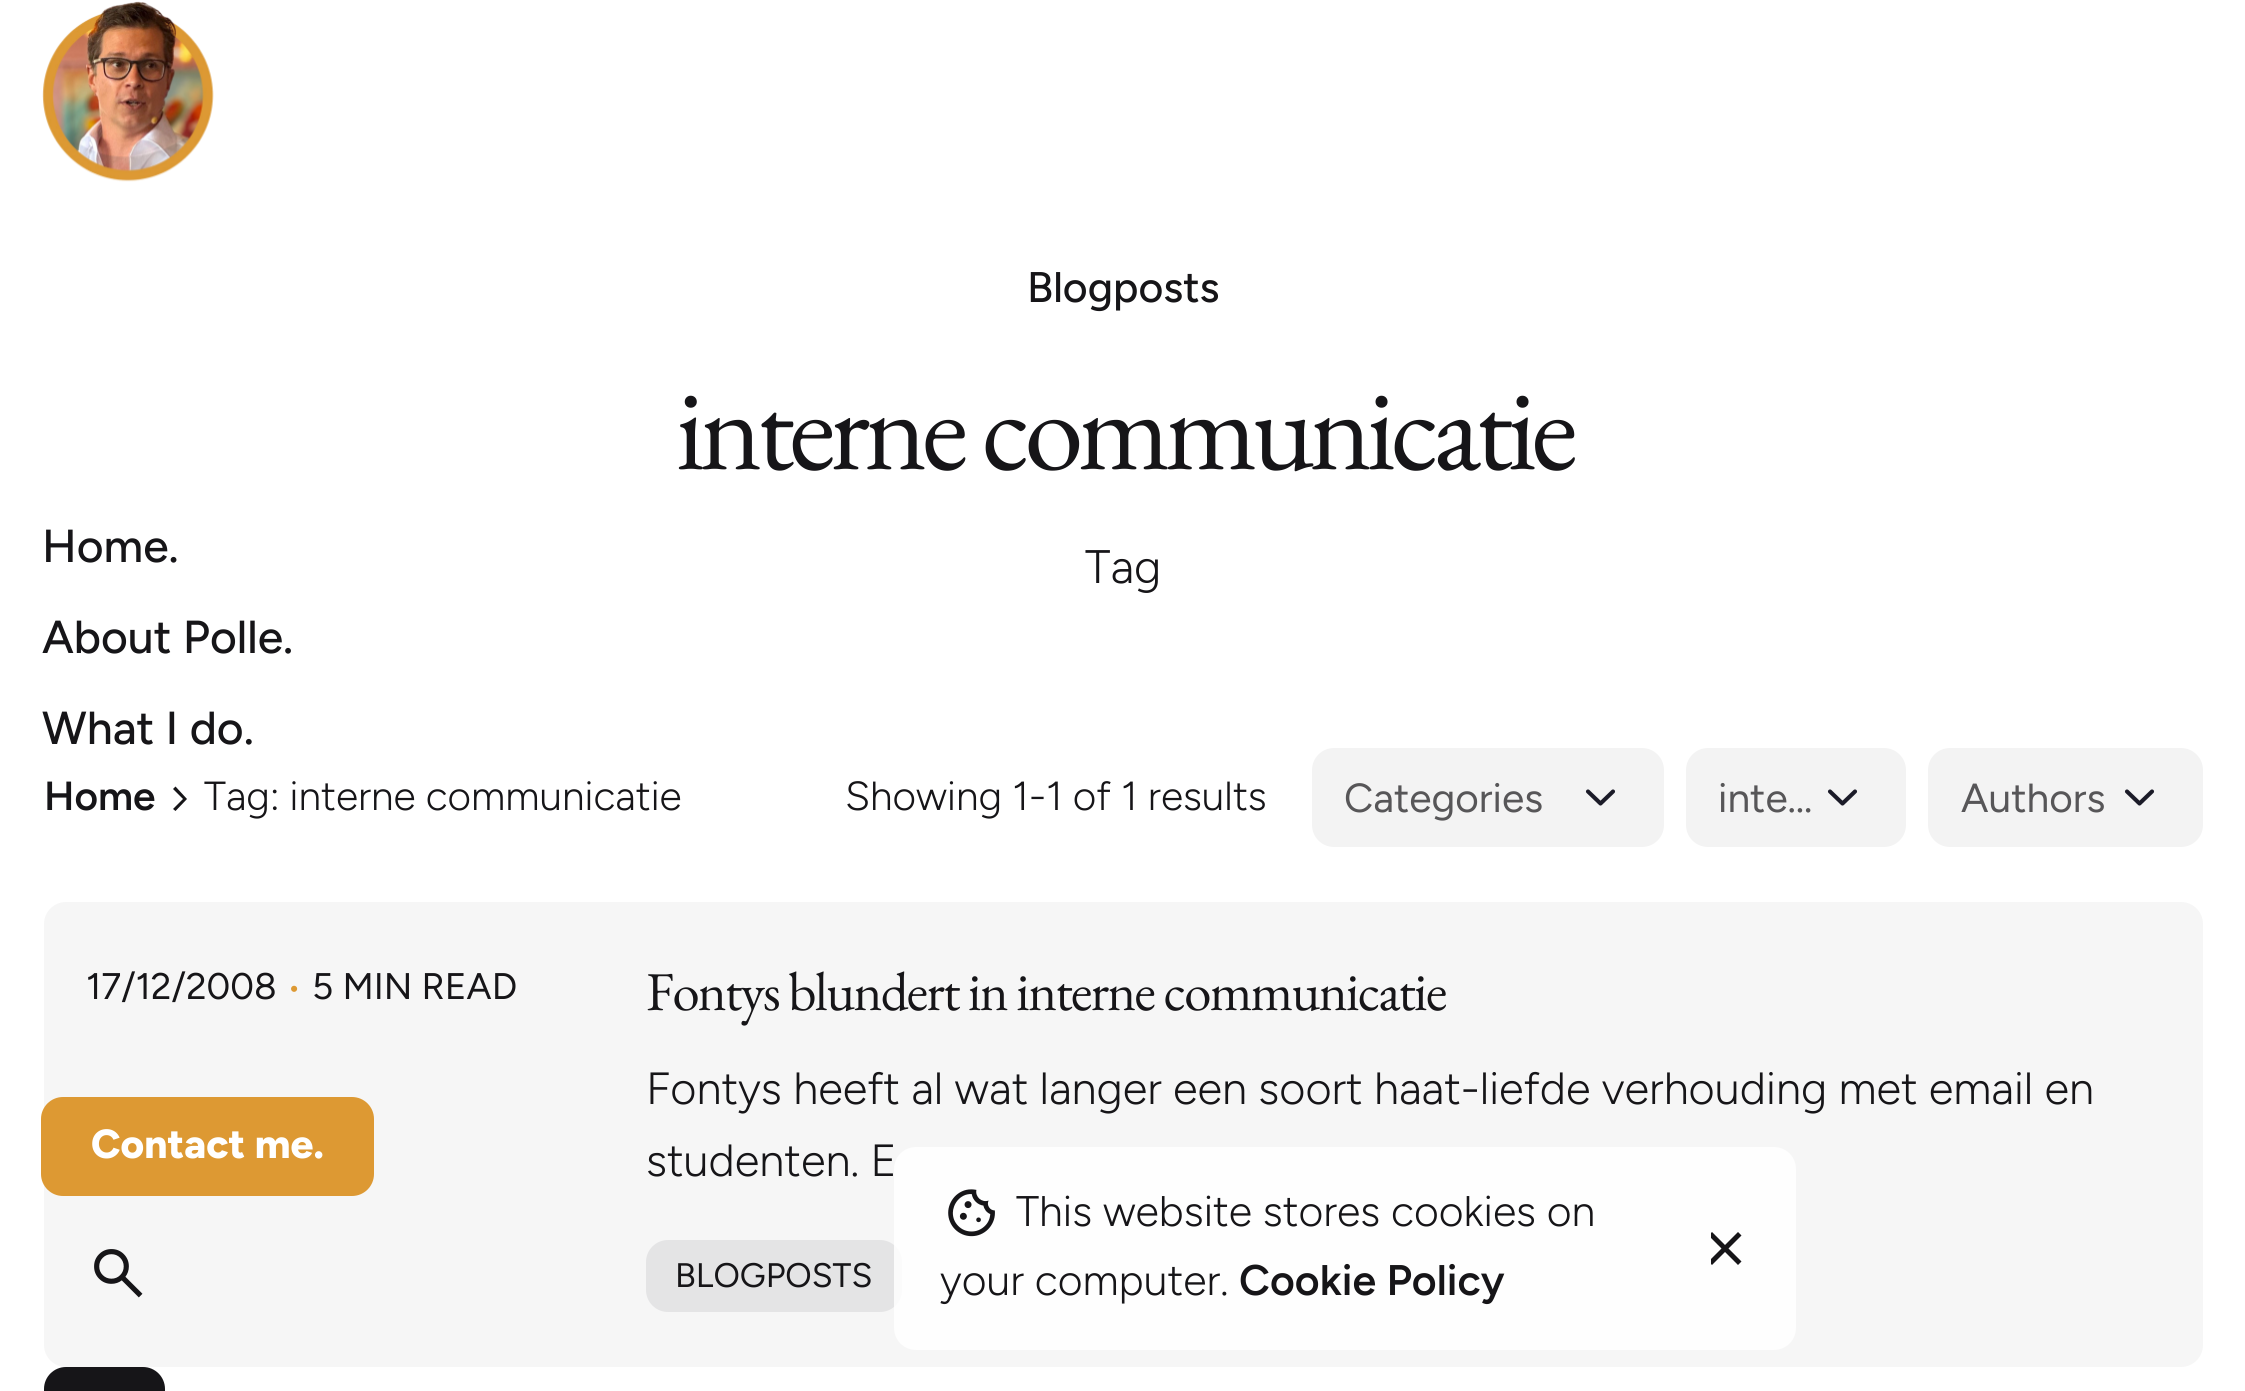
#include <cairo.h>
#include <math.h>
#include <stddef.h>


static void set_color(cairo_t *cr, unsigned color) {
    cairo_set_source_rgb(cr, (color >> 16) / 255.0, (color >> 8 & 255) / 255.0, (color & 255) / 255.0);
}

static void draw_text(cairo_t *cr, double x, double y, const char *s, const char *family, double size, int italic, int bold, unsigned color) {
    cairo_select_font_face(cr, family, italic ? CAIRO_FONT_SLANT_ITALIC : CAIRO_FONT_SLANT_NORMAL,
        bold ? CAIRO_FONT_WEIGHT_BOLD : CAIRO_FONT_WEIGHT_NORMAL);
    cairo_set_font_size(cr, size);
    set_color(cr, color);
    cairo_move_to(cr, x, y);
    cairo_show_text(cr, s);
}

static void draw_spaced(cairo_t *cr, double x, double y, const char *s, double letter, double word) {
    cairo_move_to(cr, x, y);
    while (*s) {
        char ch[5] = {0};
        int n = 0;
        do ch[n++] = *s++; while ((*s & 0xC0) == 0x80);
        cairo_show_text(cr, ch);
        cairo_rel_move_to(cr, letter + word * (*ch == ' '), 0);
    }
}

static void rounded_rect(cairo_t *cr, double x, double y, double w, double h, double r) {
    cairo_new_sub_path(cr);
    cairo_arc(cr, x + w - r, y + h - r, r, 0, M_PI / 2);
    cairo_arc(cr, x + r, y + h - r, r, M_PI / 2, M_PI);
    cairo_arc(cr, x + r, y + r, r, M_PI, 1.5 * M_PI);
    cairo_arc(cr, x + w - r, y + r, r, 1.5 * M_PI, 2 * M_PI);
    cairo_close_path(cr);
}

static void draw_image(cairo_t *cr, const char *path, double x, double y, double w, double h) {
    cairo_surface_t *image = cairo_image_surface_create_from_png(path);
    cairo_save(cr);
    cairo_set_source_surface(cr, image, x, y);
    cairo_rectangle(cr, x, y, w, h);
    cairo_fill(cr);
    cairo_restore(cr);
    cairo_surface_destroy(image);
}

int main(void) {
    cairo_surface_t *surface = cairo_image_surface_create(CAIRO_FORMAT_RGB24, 2245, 1391);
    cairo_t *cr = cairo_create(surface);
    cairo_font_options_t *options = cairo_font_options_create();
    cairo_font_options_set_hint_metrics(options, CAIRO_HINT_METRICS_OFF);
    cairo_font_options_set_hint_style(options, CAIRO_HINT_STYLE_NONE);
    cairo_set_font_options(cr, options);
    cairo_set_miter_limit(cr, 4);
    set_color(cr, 0xFFFFFF);
    cairo_paint(cr);
    draw_text(cr, 1027, 302, "Blogposts", "Figtree Medium", 42.8, 0, 0, 0x161518);
    cairo_select_font_face(cr, "EB Garamond", CAIRO_FONT_SLANT_NORMAL, CAIRO_FONT_WEIGHT_NORMAL);
    cairo_set_font_size(cr, 118.75);
    draw_spaced(cr, 676, 469, "interne communicatie", -5.3, 0);
    draw_text(cr, 1085, 583, "Tag", "Figtree Light", 47, 0, 0, 0x161518);
    draw_text(cr, 44, 810, "Home", "Figtree SemiBold", 40.6, 0, 0, 0x161518);
    cairo_new_path(cr);
    cairo_move_to(cr, 173, 809);
    cairo_line_to(cr, 175.5, 811);
    cairo_line_to(cr, 187, 799);
    cairo_line_to(cr, 175.5, 786.5);
    cairo_line_to(cr, 173, 789);
    cairo_line_to(cr, 183, 799);
    cairo_close_path(cr);
    cairo_fill(cr);
    draw_text(cr, 204, 810, "Tag: interne communicatie", "Figtree Light", 40.6, 0, 0, 0x161518);
    draw_text(cr, 845, 810, "Showing 1-1 of 1 results", "Figtree Light", 40.6, 0, 0, 0x161518);
    set_color(cr, 0xF3F3F3);
    rounded_rect(cr, 1312, 748, 352, 99, 22);
    cairo_fill(cr);
    cairo_new_path(cr);
    cairo_move_to(cr, 1588, 791.5);
    cairo_line_to(cr, 1600.5, 803.5);
    cairo_line_to(cr, 1613, 791.5);
    set_color(cr, 0x1B1B28);
    cairo_set_line_width(cr, 4.1);
    cairo_set_line_cap(cr, CAIRO_LINE_CAP_ROUND);
    cairo_set_line_join(cr, CAIRO_LINE_JOIN_ROUND);
    cairo_stroke(cr);
    draw_text(cr, 1344, 812, "Categories", "Figtree", 40.6, 0, 0, 0x575658);
    set_color(cr, 0xF3F3F3);
    rounded_rect(cr, 1686, 748, 220, 99, 22);
    cairo_fill(cr);
    cairo_new_path(cr);
    cairo_move_to(cr, 1830, 791.5);
    cairo_line_to(cr, 1842.5, 803.5);
    cairo_line_to(cr, 1855, 791.5);
    set_color(cr, 0x1B1B28);
    cairo_stroke(cr);
    draw_text(cr, 1718, 812, "inte…", "Figtree", 40.6, 0, 0, 0x575658);
    set_color(cr, 0xF3F3F3);
    rounded_rect(cr, 1928, 748, 275, 99, 22);
    cairo_fill(cr);
    cairo_new_path(cr);
    cairo_move_to(cr, 2127, 791.5);
    cairo_line_to(cr, 2139.5, 803.5);
    cairo_line_to(cr, 2152, 791.5);
    set_color(cr, 0x1B1B28);
    cairo_stroke(cr);
    draw_text(cr, 1961, 812, "Authors", "Figtree", 40.6, 0, 0, 0x575658);
    set_color(cr, 0xF6F6F6);
    rounded_rect(cr, 44, 902, 2159, 465, 22);
    cairo_fill(cr);
    draw_text(cr, 86, 999, "17/12/2008", "Figtree", 37, 0, 0, 0x161518);
    draw_text(cr, 287, 997, "•", "Figtree", 29, 0, 0, 0xDD9933);
    draw_text(cr, 312, 999, "5 MIN READ", "Figtree", 37, 0, 0, 0x161518);
    cairo_select_font_face(cr, "EB Garamond", CAIRO_FONT_SLANT_NORMAL, CAIRO_FONT_WEIGHT_NORMAL);
    cairo_set_font_size(cr, 54.75);
    draw_spaced(cr, 646, 1010, "Fontys blundert in interne communicatie", -1.65, 0);
    draw_text(cr, 646, 1104, "Fontys heeft al wat langer een soort haat-liefde verhouding met email en", "Figtree Light", 45.1, 0, 0, 0x161518);
    draw_text(cr, 646, 1176, "studenten. E", "Figtree Light", 45.1, 0, 0, 0x161518);
    set_color(cr, 0xE4E4E5);
    rounded_rect(cr, 646, 1240, 256, 72, 22);
    cairo_fill(cr);
    draw_text(cr, 675, 1287, "BLOGPOSTS", "Figtree", 34, 0, 0, 0x161518);
    rounded_rect(cr, 44, 1367, 121, 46, 22);
    cairo_fill(cr);
    draw_image(cr, "assets/img1.png", 42, 1, 172, 181);
    draw_text(cr, 42, 562, "Home.", "Figtree Medium", 46.25, 0, 0, 0x161518);
    draw_text(cr, 42, 653, "About Polle.", "Figtree Medium", 46.25, 0, 0, 0x161518);
    draw_text(cr, 42, 744, "What I do.", "Figtree Medium", 46.25, 0, 0, 0x161518);
    set_color(cr, 0xDD9933);
    rounded_rect(cr, 41, 1097, 333, 99, 22);
    cairo_fill(cr);
    draw_text(cr, 91, 1158, "Contact me.", "Figtree ExtraBold", 40.6, 0, 0, 0xFFFFFF);
    draw_image(cr, "assets/img2.png", 94, 1249, 49, 49);
    cairo_set_source_rgba(cr, 1, 1, 1, 0.85);
    rounded_rect(cr, 894, 1147, 902, 203, 22);
    cairo_fill(cr);
    draw_image(cr, "assets/img3.png", 948, 1189, 47, 48);
    draw_text(cr, 1016, 1226, "This website stores cookies on", "Figtree Light", 42.8, 0, 0, 0x161518);
    draw_text(cr, 940, 1295, "your computer.", "Figtree Light", 42.8, 0, 0, 0x161518);
    draw_text(cr, 1239, 1295, "Cookie Policy", "Figtree SemiBold", 42.8, 0, 0, 0x161518);
    cairo_save(cr);
    cairo_rectangle(cr, 1711, 1232, 33, 33);
    cairo_clip(cr);
    cairo_new_path(cr);
    cairo_move_to(cr, 1741.5, 1235.5);
    cairo_line_to(cr, 1738, 1232);
    cairo_line_to(cr, 1725, 1245);
    cairo_line_to(cr, 1712, 1232);
    cairo_line_to(cr, 1708.5, 1235.5);
    cairo_line_to(cr, 1721.5, 1248.5);
    cairo_line_to(cr, 1708.5, 1261.5);
    cairo_line_to(cr, 1712, 1265);
    cairo_line_to(cr, 1725, 1252);
    cairo_line_to(cr, 1738, 1265);
    cairo_line_to(cr, 1741.5, 1261.5);
    cairo_line_to(cr, 1728.5, 1248.5);
    cairo_close_path(cr);
    cairo_fill(cr);
    cairo_restore(cr);
    cairo_surface_write_to_png(surface, "output.png");
    cairo_font_options_destroy(options);
    cairo_destroy(cr);
    cairo_surface_destroy(surface);
    return 0;
}
